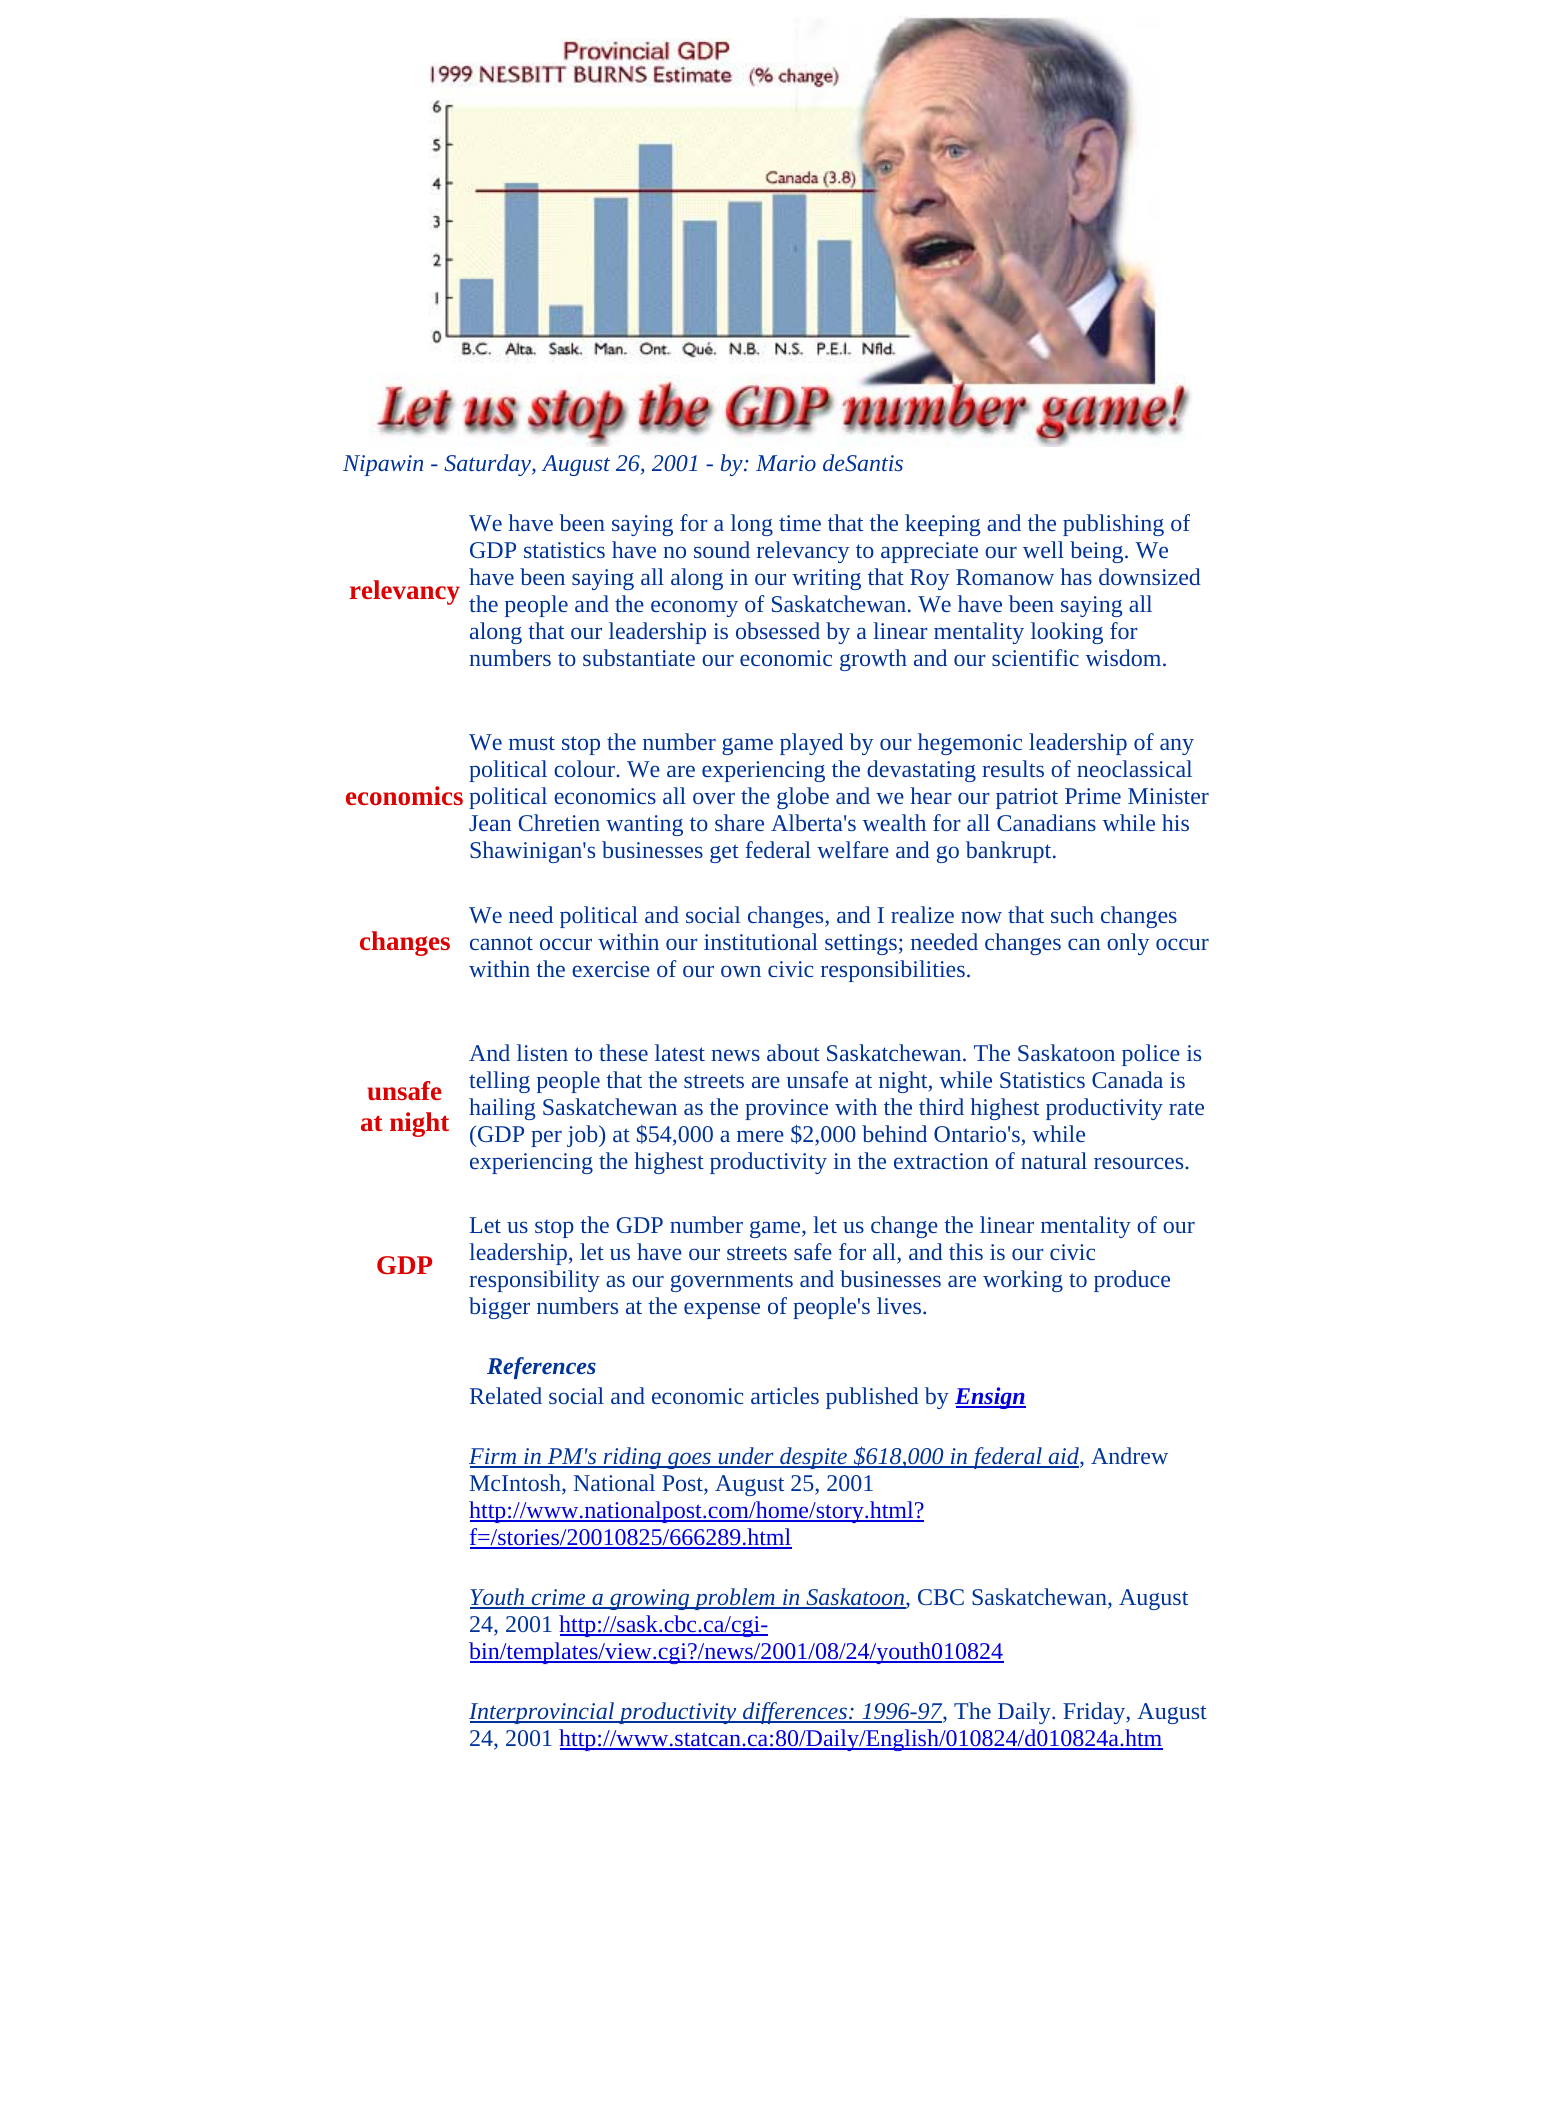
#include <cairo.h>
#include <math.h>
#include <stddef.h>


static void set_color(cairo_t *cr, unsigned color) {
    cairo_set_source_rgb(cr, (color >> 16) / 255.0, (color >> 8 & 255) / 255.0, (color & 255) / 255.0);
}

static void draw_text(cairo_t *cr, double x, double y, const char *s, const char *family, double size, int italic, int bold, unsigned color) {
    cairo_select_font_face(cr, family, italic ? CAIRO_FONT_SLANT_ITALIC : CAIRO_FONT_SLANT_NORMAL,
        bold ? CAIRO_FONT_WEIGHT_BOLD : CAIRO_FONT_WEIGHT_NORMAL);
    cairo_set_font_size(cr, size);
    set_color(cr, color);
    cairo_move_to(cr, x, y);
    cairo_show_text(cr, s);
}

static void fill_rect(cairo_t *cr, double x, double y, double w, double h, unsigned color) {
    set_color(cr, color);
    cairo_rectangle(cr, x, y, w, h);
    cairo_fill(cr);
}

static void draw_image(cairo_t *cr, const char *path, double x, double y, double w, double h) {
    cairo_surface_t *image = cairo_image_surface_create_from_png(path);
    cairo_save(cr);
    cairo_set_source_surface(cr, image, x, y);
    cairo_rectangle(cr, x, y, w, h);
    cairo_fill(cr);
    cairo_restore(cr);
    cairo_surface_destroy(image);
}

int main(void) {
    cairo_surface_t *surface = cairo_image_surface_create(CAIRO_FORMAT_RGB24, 1553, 2111);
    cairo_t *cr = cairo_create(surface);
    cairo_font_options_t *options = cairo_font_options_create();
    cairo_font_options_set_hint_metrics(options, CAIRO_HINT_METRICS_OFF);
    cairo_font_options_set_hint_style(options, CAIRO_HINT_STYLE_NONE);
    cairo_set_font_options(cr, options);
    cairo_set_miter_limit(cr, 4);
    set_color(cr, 0xFFFFFF);
    cairo_paint(cr);
    draw_image(cr, "assets/img1.png", 368, 15, 825, 432);
    draw_text(cr, 343, 471, "Nipawin - Saturday, August 26, 2001 - by: Mario deSantis", "Liberation Serif", 24, 1, 0, 0x003399);
    draw_text(cr, 349, 599, "relevancy", "Liberation Serif", 27, 0, 1, 0xDD0000);
    draw_text(cr, 469, 531, "We have been saying for a long time that the keeping and the publishing of", "Liberation Serif", 24, 0, 0, 0x003399);
    draw_text(cr, 469, 558, "GDP statistics have no sound relevancy to appreciate our well being. We", "Liberation Serif", 24, 0, 0, 0x003399);
    draw_text(cr, 469, 585, "have been saying all along in our writing that Roy Romanow has downsized", "Liberation Serif", 24, 0, 0, 0x003399);
    draw_text(cr, 469, 612, "the people and the economy of Saskatchewan. We have been saying all", "Liberation Serif", 24, 0, 0, 0x003399);
    draw_text(cr, 469, 639, "along that our leadership is obsessed by a linear mentality looking for", "Liberation Serif", 24, 0, 0, 0x003399);
    draw_text(cr, 469, 666, "numbers to substantiate our economic growth and our scientific wisdom.", "Liberation Serif", 24, 0, 0, 0x003399);
    draw_text(cr, 345, 805, "economics", "Liberation Serif", 27, 0, 1, 0xDD0000);
    draw_text(cr, 469, 750, "We must stop the number game played by our hegemonic leadership of any", "Liberation Serif", 24, 0, 0, 0x003399);
    draw_text(cr, 469, 777, "political colour. We are experiencing the devastating results of neoclassical", "Liberation Serif", 24, 0, 0, 0x003399);
    draw_text(cr, 469, 804, "political economics all over the globe and we hear our patriot Prime Minister", "Liberation Serif", 24, 0, 0, 0x003399);
    draw_text(cr, 469, 831, "Jean Chretien wanting to share Alberta's wealth for all Canadians while his", "Liberation Serif", 24, 0, 0, 0x003399);
    draw_text(cr, 469, 858, "Shawinigan's businesses get federal welfare and go bankrupt.", "Liberation Serif", 24, 0, 0, 0x003399);
    draw_text(cr, 359, 950, "changes", "Liberation Serif", 27, 0, 1, 0xDD0000);
    draw_text(cr, 469, 923, "We need political and social changes, and I realize now that such changes", "Liberation Serif", 24, 0, 0, 0x003399);
    draw_text(cr, 469, 950, "cannot occur within our institutional settings; needed changes can only occur", "Liberation Serif", 24, 0, 0, 0x003399);
    draw_text(cr, 469, 977, "within the exercise of our own civic responsibilities.", "Liberation Serif", 24, 0, 0, 0x003399);
    draw_text(cr, 367, 1100, "unsafe", "Liberation Serif", 27, 0, 1, 0xDD0000);
    draw_text(cr, 360, 1131, "at night", "Liberation Serif", 27, 0, 1, 0xDD0000);
    draw_text(cr, 469, 1061, "And listen to these latest news about Saskatchewan. The Saskatoon police is", "Liberation Serif", 24, 0, 0, 0x003399);
    draw_text(cr, 469, 1088, "telling people that the streets are unsafe at night, while Statistics Canada is", "Liberation Serif", 24, 0, 0, 0x003399);
    draw_text(cr, 469, 1115, "hailing Saskatchewan as the province with the third highest productivity rate", "Liberation Serif", 24, 0, 0, 0x003399);
    draw_text(cr, 469, 1142, "(GDP per job) at $54,000 a mere $2,000 behind Ontario's, while", "Liberation Serif", 24, 0, 0, 0x003399);
    draw_text(cr, 469, 1169, "experiencing the highest productivity in the extraction of natural resources.", "Liberation Serif", 24, 0, 0, 0x003399);
    draw_text(cr, 376, 1274, "GDP", "Liberation Serif", 27, 0, 1, 0xDD0000);
    draw_text(cr, 469, 1233, "Let us stop the GDP number game, let us change the linear mentality of our", "Liberation Serif", 24, 0, 0, 0x003399);
    draw_text(cr, 469, 1260, "leadership, let us have our streets safe for all, and this is our civic", "Liberation Serif", 24, 0, 0, 0x003399);
    draw_text(cr, 469, 1287, "responsibility as our governments and businesses are working to produce", "Liberation Serif", 24, 0, 0, 0x003399);
    draw_text(cr, 469, 1314, "bigger numbers at the expense of people's lives.", "Liberation Serif", 24, 0, 0, 0x003399);
    draw_text(cr, 487, 1374, "References", "Liberation Serif", 24, 1, 1, 0x003399);
    draw_text(cr, 469, 1404, "Related social and economic articles published by", "Liberation Serif", 24, 0, 0, 0x003399);
    fill_rect(cr, 956, 1406, 70, 2, 0x0000DD);
    draw_text(cr, 955, 1404, "Ensign", "Liberation Serif", 24, 1, 1, 0x0000DD);
    fill_rect(cr, 470, 1466, 609, 2, 0x003399);
    draw_text(cr, 469, 1464, "Firm in PM's riding goes under despite $618,000 in federal aid", "Liberation Serif", 24, 1, 0, 0x003399);
    draw_text(cr, 1079, 1464, ", Andrew", "Liberation Serif", 24, 0, 0, 0x003399);
    draw_text(cr, 469, 1491, "McIntosh, National Post, August 25, 2001", "Liberation Serif", 24, 0, 0, 0x003399);
    fill_rect(cr, 470, 1520, 454, 2, 0x0000DD);
    draw_text(cr, 469, 1518, "http://www.nationalpost.com/home/story.html?", "Liberation Serif", 24, 0, 0, 0x0000DD);
    draw_text(cr, 469, 1545, "f=/stories/20010825/666289.html", "Liberation Serif", 24, 0, 0, 0x0000DD);
    fill_rect(cr, 470, 1547, 322, 2, 0x0000DD);
    fill_rect(cr, 470, 1607, 436, 2, 0x003399);
    draw_text(cr, 469, 1605, "Youth crime a growing problem in Saskatoon", "Liberation Serif", 24, 1, 0, 0x003399);
    draw_text(cr, 905, 1605, ", CBC Saskatchewan, August", "Liberation Serif", 24, 0, 0, 0x003399);
    draw_text(cr, 469, 1632, "24, 2001", "Liberation Serif", 24, 0, 0, 0x003399);
    fill_rect(cr, 560, 1634, 208, 2, 0x0000DD);
    draw_text(cr, 559, 1632, "http://sask.cbc.ca/cgi-", "Liberation Serif", 24, 0, 0, 0x0000DD);
    fill_rect(cr, 470, 1661, 534, 2, 0x0000DD);
    draw_text(cr, 469, 1659, "bin/templates/view.cgi?/news/2001/08/24/youth010824", "Liberation Serif", 24, 0, 0, 0x0000DD);
    fill_rect(cr, 470, 1721, 472, 2, 0x003399);
    draw_text(cr, 469, 1719, "Interprovincial productivity differences: 1996-97", "Liberation Serif", 24, 1, 0, 0x003399);
    draw_text(cr, 942, 1719, ", The Daily. Friday, August", "Liberation Serif", 24, 0, 0, 0x003399);
    draw_text(cr, 469, 1746, "24, 2001", "Liberation Serif", 24, 0, 0, 0x003399);
    fill_rect(cr, 560, 1748, 603, 2, 0x0000DD);
    draw_text(cr, 559, 1746, "http://www.statcan.ca:80/Daily/English/010824/d010824a.htm", "Liberation Serif", 24, 0, 0, 0x0000DD);
    cairo_surface_write_to_png(surface, "output.png");
    cairo_font_options_destroy(options);
    cairo_destroy(cr);
    cairo_surface_destroy(surface);
    return 0;
}
